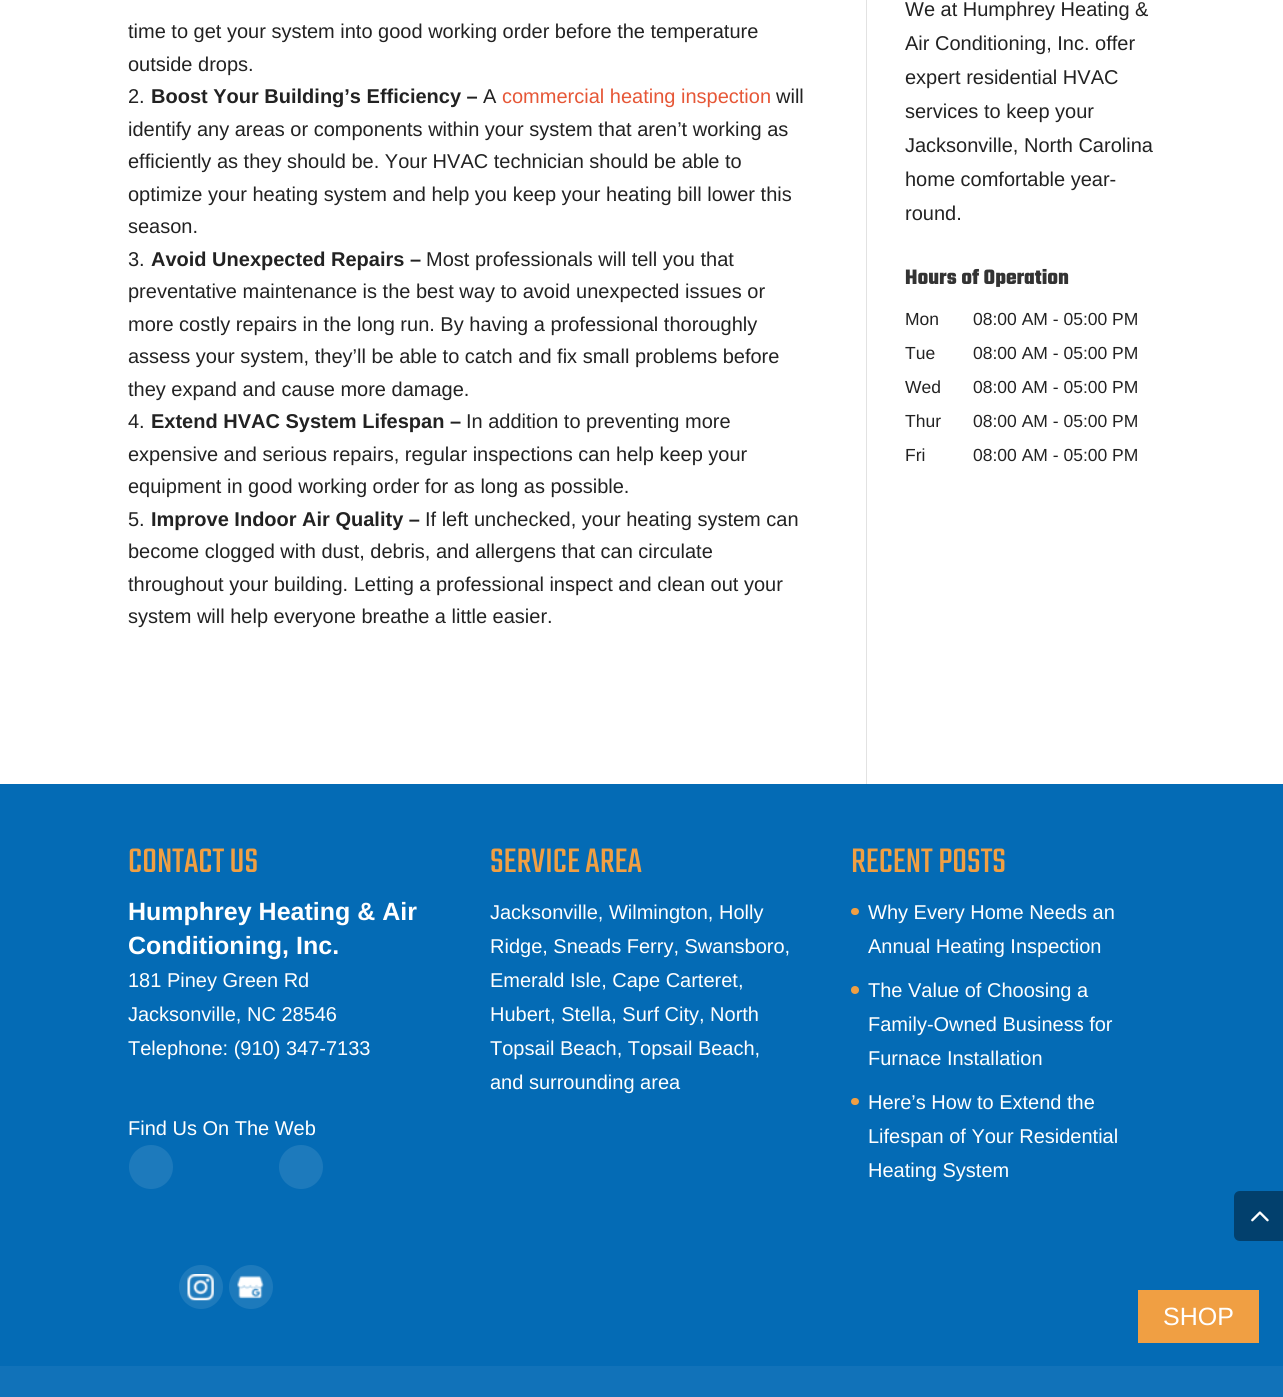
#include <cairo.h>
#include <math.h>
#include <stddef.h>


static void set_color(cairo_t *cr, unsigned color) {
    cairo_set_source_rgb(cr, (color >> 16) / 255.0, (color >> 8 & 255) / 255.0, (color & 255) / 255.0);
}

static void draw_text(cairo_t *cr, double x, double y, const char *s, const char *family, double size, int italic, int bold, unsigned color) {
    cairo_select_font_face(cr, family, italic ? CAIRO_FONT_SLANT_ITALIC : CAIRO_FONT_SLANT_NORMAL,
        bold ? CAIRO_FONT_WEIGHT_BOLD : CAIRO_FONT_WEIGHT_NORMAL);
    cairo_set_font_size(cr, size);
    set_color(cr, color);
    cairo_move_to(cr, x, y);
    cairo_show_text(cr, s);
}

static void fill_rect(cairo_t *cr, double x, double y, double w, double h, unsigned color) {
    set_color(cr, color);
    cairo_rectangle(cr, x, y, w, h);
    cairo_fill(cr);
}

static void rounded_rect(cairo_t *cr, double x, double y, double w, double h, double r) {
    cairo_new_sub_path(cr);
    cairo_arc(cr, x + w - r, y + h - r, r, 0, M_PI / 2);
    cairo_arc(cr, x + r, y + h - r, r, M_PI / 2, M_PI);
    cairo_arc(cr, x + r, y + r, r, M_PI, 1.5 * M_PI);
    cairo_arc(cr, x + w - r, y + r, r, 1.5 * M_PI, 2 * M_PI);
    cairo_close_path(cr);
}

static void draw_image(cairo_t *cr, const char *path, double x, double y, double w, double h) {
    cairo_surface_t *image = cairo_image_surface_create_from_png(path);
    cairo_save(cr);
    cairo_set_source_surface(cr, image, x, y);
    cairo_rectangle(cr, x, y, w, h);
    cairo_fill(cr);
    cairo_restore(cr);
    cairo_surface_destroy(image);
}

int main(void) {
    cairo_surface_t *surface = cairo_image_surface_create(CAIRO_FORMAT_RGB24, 1283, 1397);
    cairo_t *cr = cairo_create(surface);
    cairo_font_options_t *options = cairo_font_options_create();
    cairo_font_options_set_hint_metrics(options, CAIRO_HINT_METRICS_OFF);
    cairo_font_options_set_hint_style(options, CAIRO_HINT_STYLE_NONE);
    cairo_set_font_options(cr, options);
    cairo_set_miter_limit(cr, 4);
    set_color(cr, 0xFFFFFF);
    cairo_paint(cr);
    fill_rect(cr, 866, 0, 1, 784, 0xE2E2E2);
    draw_text(cr, 128, 38, "time to get your system into good working order before the temperature", "Liberation Sans", 20, 0, 0, 0x222222);
    draw_text(cr, 128, 71, "outside drops.", "Liberation Sans", 20, 0, 0, 0x222222);
    draw_text(cr, 128, 103, "2.", "Liberation Sans", 20, 0, 0, 0x222222);
    draw_text(cr, 151, 103, "Boost Your Building’s Efficiency –", "Liberation Sans", 20, 0, 1, 0x222222);
    draw_text(cr, 483, 103, "A", "Liberation Sans", 20, 0, 0, 0x222222);
    draw_text(cr, 502, 103, "commercial heating inspection", "Liberation Sans", 20, 0, 0, 0xE65737);
    draw_text(cr, 776, 103, "will", "Liberation Sans", 20, 0, 0, 0x222222);
    draw_text(cr, 128, 136, "identify any areas or components within your system that aren’t working as", "Liberation Sans", 20, 0, 0, 0x222222);
    draw_text(cr, 128, 168, "efficiently as they should be. Your HVAC technician should be able to", "Liberation Sans", 20, 0, 0, 0x222222);
    draw_text(cr, 128, 201, "optimize your heating system and help you keep your heating bill lower this", "Liberation Sans", 20, 0, 0, 0x222222);
    draw_text(cr, 128, 233, "season.", "Liberation Sans", 20, 0, 0, 0x222222);
    draw_text(cr, 128, 266, "3.", "Liberation Sans", 20, 0, 0, 0x222222);
    draw_text(cr, 151, 266, "Avoid Unexpected Repairs –", "Liberation Sans", 20, 0, 1, 0x222222);
    draw_text(cr, 426, 266, "Most professionals will tell you that", "Liberation Sans", 20, 0, 0, 0x222222);
    draw_text(cr, 128, 298, "preventative maintenance is the best way to avoid unexpected issues or", "Liberation Sans", 20, 0, 0, 0x222222);
    draw_text(cr, 128, 331, "more costly repairs in the long run. By having a professional thoroughly", "Liberation Sans", 20, 0, 0, 0x222222);
    draw_text(cr, 128, 363, "assess your system, they’ll be able to catch and fix small problems before", "Liberation Sans", 20, 0, 0, 0x222222);
    draw_text(cr, 128, 396, "they expand and cause more damage.", "Liberation Sans", 20, 0, 0, 0x222222);
    draw_text(cr, 128, 428, "4.", "Liberation Sans", 20, 0, 0, 0x222222);
    draw_text(cr, 151, 428, "Extend HVAC System Lifespan –", "Liberation Sans", 20, 0, 1, 0x222222);
    draw_text(cr, 466, 428, "In addition to preventing more", "Liberation Sans", 20, 0, 0, 0x222222);
    draw_text(cr, 128, 461, "expensive and serious repairs, regular inspections can help keep your", "Liberation Sans", 20, 0, 0, 0x222222);
    draw_text(cr, 128, 493, "equipment in good working order for as long as possible.", "Liberation Sans", 20, 0, 0, 0x222222);
    draw_text(cr, 128, 526, "5.", "Liberation Sans", 20, 0, 0, 0x222222);
    draw_text(cr, 151, 526, "Improve Indoor Air Quality –", "Liberation Sans", 20, 0, 1, 0x222222);
    draw_text(cr, 425, 526, "If left unchecked, your heating system can", "Liberation Sans", 20, 0, 0, 0x222222);
    draw_text(cr, 128, 558, "become clogged with dust, debris, and allergens that can circulate", "Liberation Sans", 20, 0, 0, 0x222222);
    draw_text(cr, 128, 591, "throughout your building. Letting a professional inspect and clean out your", "Liberation Sans", 20, 0, 0, 0x222222);
    draw_text(cr, 128, 623, "system will help everyone breathe a little easier.", "Liberation Sans", 20, 0, 0, 0x222222);
    draw_text(cr, 905, 16, "We at Humphrey Heating &", "Liberation Sans", 20, 0, 0, 0x222222);
    draw_text(cr, 905, 50, "Air Conditioning, Inc. offer", "Liberation Sans", 20, 0, 0, 0x222222);
    draw_text(cr, 905, 84, "expert residential HVAC", "Liberation Sans", 20, 0, 0, 0x222222);
    draw_text(cr, 905, 118, "services to keep your", "Liberation Sans", 20, 0, 0, 0x222222);
    draw_text(cr, 905, 152, "Jacksonville, North Carolina", "Liberation Sans", 20, 0, 0, 0x222222);
    draw_text(cr, 905, 186, "home comfortable year-", "Liberation Sans", 20, 0, 0, 0x222222);
    draw_text(cr, 905, 220, "round.", "Liberation Sans", 20, 0, 0, 0x222222);
    draw_text(cr, 905, 284, "Hours of Operation", "Teko", 22.5, 0, 1, 0x333333);
    draw_text(cr, 905, 325, "Mon", "Liberation Sans", 17.5, 0, 0, 0x222222);
    draw_text(cr, 973, 325, "08:00 AM - 05:00 PM", "Liberation Sans", 17.5, 0, 0, 0x222222);
    draw_text(cr, 905, 359, "Tue", "Liberation Sans", 17.5, 0, 0, 0x222222);
    draw_text(cr, 973, 359, "08:00 AM - 05:00 PM", "Liberation Sans", 17.5, 0, 0, 0x222222);
    draw_text(cr, 905, 393, "Wed", "Liberation Sans", 17.5, 0, 0, 0x222222);
    draw_text(cr, 973, 393, "08:00 AM - 05:00 PM", "Liberation Sans", 17.5, 0, 0, 0x222222);
    draw_text(cr, 905, 427, "Thur", "Liberation Sans", 17.5, 0, 0, 0x222222);
    draw_text(cr, 973, 427, "08:00 AM - 05:00 PM", "Liberation Sans", 17.5, 0, 0, 0x222222);
    draw_text(cr, 905, 461, "Fri", "Liberation Sans", 17.5, 0, 0, 0x222222);
    draw_text(cr, 973, 461, "08:00 AM - 05:00 PM", "Liberation Sans", 17.5, 0, 0, 0x222222);
    fill_rect(cr, 0, 784, 1283, 582, 0x046BB5);
    draw_text(cr, 128, 872, "CONTACT US", "Teko", 37.5, 0, 0, 0xF09F43);
    draw_text(cr, 128, 920, "Humphrey Heating & Air", "Liberation Sans", 25, 0, 1, 0xFFFFFF);
    draw_text(cr, 128, 954, "Conditioning, Inc.", "Liberation Sans", 25, 0, 1, 0xFFFFFF);
    draw_text(cr, 128, 987, "181 Piney Green Rd", "Liberation Sans", 20, 0, 0, 0xFFFFFF);
    draw_text(cr, 128, 1021, "Jacksonville, NC 28546", "Liberation Sans", 20, 0, 0, 0xFFFFFF);
    draw_text(cr, 128, 1055, "Telephone: (910) 347-7133", "Liberation Sans", 20, 0, 0, 0xFFFFFF);
    draw_text(cr, 128, 1135, "Find Us On The Web", "Liberation Sans", 20, 0, 0, 0xFFFFFF);
    set_color(cr, 0x1D7ABC);
    cairo_new_path(cr);
    cairo_arc(cr, 151, 1167, 22, 0, 2 * M_PI);
    cairo_fill(cr);
    cairo_arc(cr, 301, 1167, 22, 0, 2 * M_PI);
    cairo_fill(cr);
    cairo_arc(cr, 201, 1287, 22, 0, 2 * M_PI);
    cairo_fill(cr);
    draw_image(cr, "assets/img1.png", 187, 1274, 27, 27);
    cairo_arc(cr, 251, 1287, 22, 0, 2 * M_PI);
    cairo_fill(cr);
    draw_image(cr, "assets/img2.png", 237, 1275, 27, 24);
    draw_text(cr, 490, 872, "SERVICE AREA", "Teko", 37.5, 0, 0, 0xF09F43);
    draw_text(cr, 490, 919, "Jacksonville, Wilmington, Holly", "Liberation Sans", 20, 0, 0, 0xFFFFFF);
    draw_text(cr, 490, 953, "Ridge, Sneads Ferry, Swansboro,", "Liberation Sans", 20, 0, 0, 0xFFFFFF);
    draw_text(cr, 490, 987, "Emerald Isle, Cape Carteret,", "Liberation Sans", 20, 0, 0, 0xFFFFFF);
    draw_text(cr, 490, 1021, "Hubert, Stella, Surf City, North", "Liberation Sans", 20, 0, 0, 0xFFFFFF);
    draw_text(cr, 490, 1055, "Topsail Beach, Topsail Beach,", "Liberation Sans", 20, 0, 0, 0xFFFFFF);
    draw_text(cr, 490, 1089, "and surrounding area", "Liberation Sans", 20, 0, 0, 0xFFFFFF);
    draw_text(cr, 851, 872, "RECENT POSTS", "Teko", 37.5, 0, 0, 0xF09F43);
    rounded_rect(cr, 851, 908, 8, 7, 3.5);
    cairo_fill(cr);
    draw_text(cr, 868, 919, "Why Every Home Needs an", "Liberation Sans", 20, 0, 0, 0xFFFFFF);
    draw_text(cr, 868, 953, "Annual Heating Inspection", "Liberation Sans", 20, 0, 0, 0xFFFFFF);
    set_color(cr, 0xF09F43);
    cairo_new_path(cr);
    cairo_arc(cr, 855, 990, 4, 0, 2 * M_PI);
    cairo_fill(cr);
    draw_text(cr, 868, 997, "The Value of Choosing a", "Liberation Sans", 20, 0, 0, 0xFFFFFF);
    draw_text(cr, 868, 1031, "Family-Owned Business for", "Liberation Sans", 20, 0, 0, 0xFFFFFF);
    draw_text(cr, 868, 1065, "Furnace Installation", "Liberation Sans", 20, 0, 0, 0xFFFFFF);
    set_color(cr, 0xF09F43);
    rounded_rect(cr, 851, 1098, 8, 7, 3.5);
    cairo_fill(cr);
    draw_text(cr, 868, 1109, "Here’s How to Extend the", "Liberation Sans", 20, 0, 0, 0xFFFFFF);
    draw_text(cr, 868, 1143, "Lifespan of Your Residential", "Liberation Sans", 20, 0, 0, 0xFFFFFF);
    draw_text(cr, 868, 1177, "Heating System", "Liberation Sans", 20, 0, 0, 0xFFFFFF);
    fill_rect(cr, 1138, 1290, 121, 53, 0xF09F43);
    draw_text(cr, 1163, 1325, "SHOP", "Liberation Sans", 25, 0, 0, 0xFFFFFF);
    fill_rect(cr, 0, 1366, 1283, 31, 0x1172B9);
    set_color(cr, 0x02406D);
    cairo_new_path(cr);
    cairo_move_to(cr, 1240, 1191);
    cairo_line_to(cr, 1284, 1191);
    cairo_line_to(cr, 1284, 1241);
    cairo_line_to(cr, 1240, 1241);
    cairo_curve_to(cr, 1236.5, 1241, 1234, 1238.5, 1234, 1235);
    cairo_line_to(cr, 1234, 1197);
    cairo_curve_to(cr, 1234, 1193.5, 1236.5, 1191, 1240, 1191);
    cairo_close_path(cr);
    cairo_fill(cr);
    draw_image(cr, "assets/img3.png", 1251, 1211, 18, 11);
    cairo_surface_write_to_png(surface, "output.png");
    cairo_font_options_destroy(options);
    cairo_destroy(cr);
    cairo_surface_destroy(surface);
    return 0;
}
